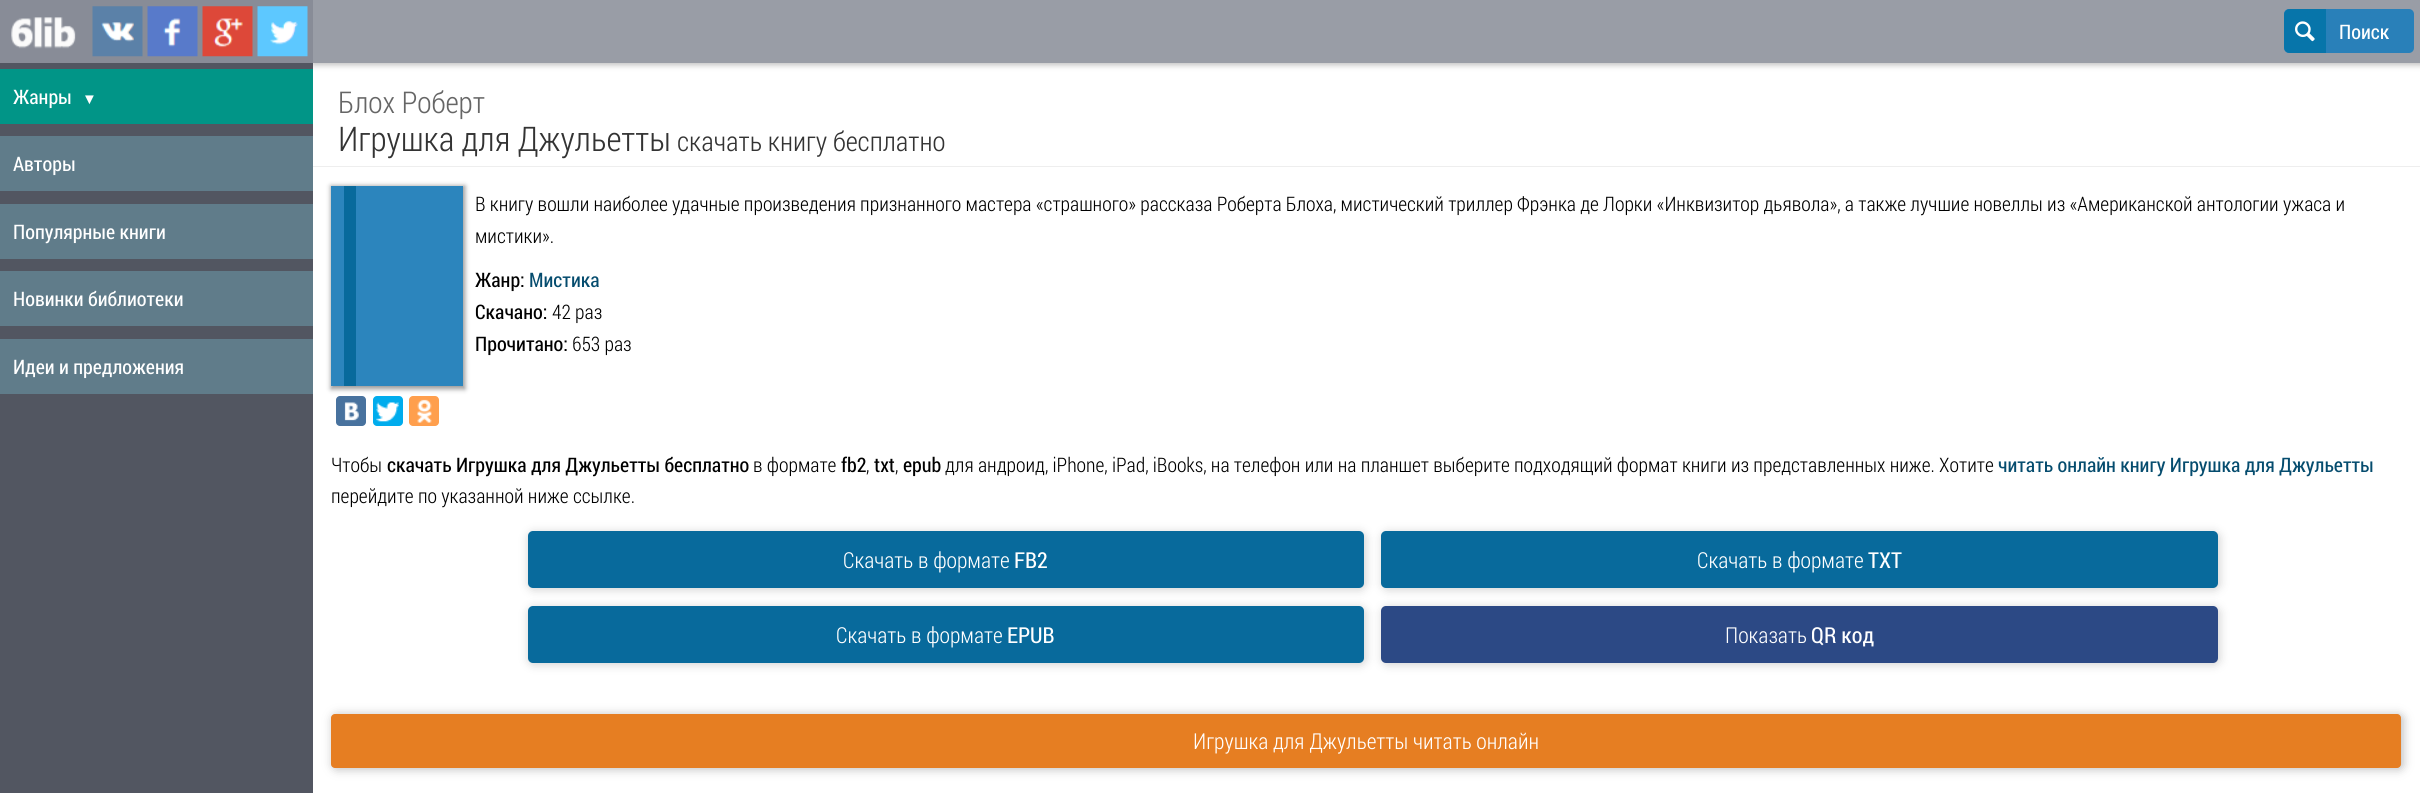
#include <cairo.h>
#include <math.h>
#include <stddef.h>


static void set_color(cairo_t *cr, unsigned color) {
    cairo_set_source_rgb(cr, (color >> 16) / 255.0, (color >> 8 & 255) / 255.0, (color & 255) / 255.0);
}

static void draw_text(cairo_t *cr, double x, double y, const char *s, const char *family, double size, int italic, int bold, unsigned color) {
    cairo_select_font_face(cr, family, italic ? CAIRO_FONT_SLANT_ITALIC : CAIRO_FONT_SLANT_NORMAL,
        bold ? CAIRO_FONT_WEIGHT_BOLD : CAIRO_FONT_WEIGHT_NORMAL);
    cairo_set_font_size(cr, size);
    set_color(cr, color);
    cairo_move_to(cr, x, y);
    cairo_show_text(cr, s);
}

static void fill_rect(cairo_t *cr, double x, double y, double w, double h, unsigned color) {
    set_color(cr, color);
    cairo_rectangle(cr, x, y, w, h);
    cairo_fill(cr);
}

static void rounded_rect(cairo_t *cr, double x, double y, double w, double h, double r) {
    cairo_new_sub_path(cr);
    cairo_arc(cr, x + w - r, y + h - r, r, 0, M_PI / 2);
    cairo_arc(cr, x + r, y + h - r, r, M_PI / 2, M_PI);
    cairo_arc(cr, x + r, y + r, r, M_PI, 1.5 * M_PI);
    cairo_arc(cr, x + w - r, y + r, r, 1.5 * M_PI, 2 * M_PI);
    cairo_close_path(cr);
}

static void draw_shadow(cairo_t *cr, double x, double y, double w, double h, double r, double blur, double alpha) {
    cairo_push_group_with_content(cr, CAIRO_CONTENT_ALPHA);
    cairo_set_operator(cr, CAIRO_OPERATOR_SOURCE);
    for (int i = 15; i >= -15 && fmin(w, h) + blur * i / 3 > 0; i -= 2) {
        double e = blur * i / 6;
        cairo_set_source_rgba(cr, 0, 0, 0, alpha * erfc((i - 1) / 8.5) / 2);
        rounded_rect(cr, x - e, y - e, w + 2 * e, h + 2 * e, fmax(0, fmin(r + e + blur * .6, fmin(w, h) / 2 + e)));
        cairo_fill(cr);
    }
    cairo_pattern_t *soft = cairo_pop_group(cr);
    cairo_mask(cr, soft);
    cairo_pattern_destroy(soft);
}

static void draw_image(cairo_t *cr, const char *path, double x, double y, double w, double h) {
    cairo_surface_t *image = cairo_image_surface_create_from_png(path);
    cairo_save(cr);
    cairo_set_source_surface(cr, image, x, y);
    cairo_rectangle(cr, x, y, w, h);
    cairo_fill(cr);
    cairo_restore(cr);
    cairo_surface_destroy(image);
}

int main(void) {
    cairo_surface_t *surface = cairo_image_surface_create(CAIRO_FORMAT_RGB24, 2420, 793);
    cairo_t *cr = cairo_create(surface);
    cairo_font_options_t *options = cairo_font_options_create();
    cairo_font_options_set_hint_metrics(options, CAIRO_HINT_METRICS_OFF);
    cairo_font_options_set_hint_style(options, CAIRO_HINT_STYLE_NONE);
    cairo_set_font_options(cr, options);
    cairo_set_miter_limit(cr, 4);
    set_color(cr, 0xFFFFFF);
    cairo_paint(cr);
    set_color(cr, 0x000000);
    draw_shadow(cr, 313, 3, 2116, 62, 0, 3, 0.26);
    fill_rect(cr, 0, 63, 313, 730, 0x525661);
    fill_rect(cr, 0, 0, 313, 63, 0x888C97);
    draw_image(cr, "assets/img1.png", 11, 17, 65, 32);
    draw_image(cr, "assets/img2.png", 92, 6, 51, 51);
    draw_image(cr, "assets/img3.png", 147, 6, 51, 51);
    draw_image(cr, "assets/img4.png", 202, 6, 51, 51);
    draw_image(cr, "assets/img5.png", 257, 6, 51, 51);
    fill_rect(cr, 0, 69, 313, 55, 0x019587);
    draw_text(cr, 13, 104, "Жанры", "Roboto Condensed", 20, 0, 0, 0xFFFFFF);
    draw_text(cr, 82, 104, "▼", "Liberation Serif", 15, 0, 0, 0xFFFFFF);
    fill_rect(cr, 0, 136, 313, 55, 0x607C8A);
    draw_text(cr, 13, 171, "Авторы", "Roboto Condensed", 20, 0, 0, 0xFFFFFF);
    fill_rect(cr, 0, 204, 313, 55, 0x607C8A);
    draw_text(cr, 13, 239, "Популярные книги", "Roboto Condensed", 20, 0, 0, 0xFFFFFF);
    fill_rect(cr, 0, 271, 313, 55, 0x607C8A);
    draw_text(cr, 13, 306, "Новинки библиотеки", "Roboto Condensed", 20, 0, 0, 0xFFFFFF);
    fill_rect(cr, 0, 339, 313, 55, 0x607C8A);
    draw_text(cr, 13, 374, "Идеи и предложения", "Roboto Condensed", 20, 0, 0, 0xFFFFFF);
    fill_rect(cr, 313, 0, 2107, 63, 0x999DA6);
    set_color(cr, 0x2980B9);
    rounded_rect(cr, 2284, 9, 130, 44, 5);
    cairo_fill(cr);
    set_color(cr, 0x0775AA);
    cairo_new_path(cr);
    cairo_move_to(cr, 2290, 9);
    cairo_line_to(cr, 2326, 9);
    cairo_line_to(cr, 2326, 53);
    cairo_line_to(cr, 2290, 53);
    cairo_curve_to(cr, 2286.5, 53, 2284, 50.5, 2284, 47);
    cairo_line_to(cr, 2284, 15);
    cairo_curve_to(cr, 2284, 11.5, 2286.5, 9, 2290, 9);
    cairo_close_path(cr);
    cairo_fill(cr);
    draw_image(cr, "assets/img6.png", 2295, 21, 20, 21);
    draw_text(cr, 2339, 39, "Поиск", "Roboto Condensed", 20, 0, 0, 0xFFFFFF);
    fill_rect(cr, 313, 166, 2107, 1, 0xEEEEEE);
    draw_text(cr, 338, 113, "Блох Роберт", "Roboto Condensed Light", 30, 0, 0, 0x666666);
    draw_text(cr, 338, 151, "Игрушка для Джульетты", "Roboto Condensed Light", 34, 0, 0, 0x333333);
    draw_text(cr, 677, 151, "скачать книгу бесплатно", "Roboto Condensed Light", 27.25, 0, 0, 0x333333);
    set_color(cr, 0x969696);
    draw_shadow(cr, 331, 186, 134, 203, 0, 2.5, 1);
    fill_rect(cr, 331, 186, 132, 200, 0x2C85BD);
    fill_rect(cr, 344, 186, 12, 200, 0x086A9C);
    draw_text(cr, 475, 211, "В книгу вошли наиболее удачные произведения признанного мастера «страшного» рассказа Роберта Блоха, мистический триллер Фрэнка де Лорки «Инквизитор дьявола», а также лучшие новеллы из «Американской антологии ужаса и", "Roboto Condensed Light", 20, 0, 0, 0x000000);
    draw_text(cr, 475, 243, "мистики».", "Roboto Condensed Light", 20, 0, 0, 0x000000);
    draw_text(cr, 475, 287, "Жанр:", "Roboto Condensed", 20, 0, 0, 0x000000);
    draw_text(cr, 529, 287, "Мистика", "Roboto Condensed", 20, 0, 0, 0x054C6E);
    draw_text(cr, 475, 319, "Скачано:", "Roboto Condensed", 20, 0, 0, 0x000000);
    draw_text(cr, 552, 319, "42 раз", "Roboto Condensed Light", 20, 0, 0, 0x000000);
    draw_text(cr, 475, 351, "Прочитано:", "Roboto Condensed", 20, 0, 0, 0x000000);
    draw_text(cr, 572, 351, "653 раз", "Roboto Condensed Light", 20, 0, 0, 0x000000);
    set_color(cr, 0x48729E);
    rounded_rect(cr, 336, 396, 30, 30, 4);
    cairo_fill(cr);
    draw_image(cr, "assets/img7.png", 344, 402, 15, 19);
    set_color(cr, 0x00ACED);
    rounded_rect(cr, 373, 396, 30, 30, 4);
    cairo_fill(cr);
    draw_image(cr, "assets/img8.png", 376, 402, 23, 20);
    set_color(cr, 0xFF9F4D);
    rounded_rect(cr, 409, 396, 30, 30, 4);
    cairo_fill(cr);
    draw_image(cr, "assets/img9.png", 417, 399, 15, 24);
    draw_text(cr, 331, 472, "Чтобы", "Roboto Condensed Light", 20, 0, 0, 0x000000);
    draw_text(cr, 387, 472, "скачать Игрушка для Джульетты бесплатно", "Roboto Condensed", 20, 0, 0, 0x000000);
    draw_text(cr, 753, 472, "в формате", "Roboto Condensed Light", 20, 0, 0, 0x000000);
    draw_text(cr, 841, 472, "fb2", "Roboto Condensed", 20, 0, 0, 0x000000);
    draw_text(cr, 866, 472, ",", "Roboto Condensed Light", 20, 0, 0, 0x000000);
    draw_text(cr, 874, 472, "txt", "Roboto Condensed", 20, 0, 0, 0x000000);
    draw_text(cr, 895, 472, ",", "Roboto Condensed Light", 20, 0, 0, 0x000000);
    draw_text(cr, 903, 472, "epub", "Roboto Condensed", 20, 0, 0, 0x000000);
    draw_text(cr, 945, 472, "для андроид, iPhone, iPad, iBooks, на телефон или на планшет выберите подходящий формат книги из представленных ниже. Хотите", "Roboto Condensed Light", 20, 0, 0, 0x000000);
    draw_text(cr, 1998, 472, "читать онлайн книгу Игрушка для Джульетты", "Roboto Condensed", 20, 0, 0, 0x054C6E);
    draw_text(cr, 331, 503, "перейдите по указанной ниже ссылке.", "Roboto Condensed Light", 20, 0, 0, 0x000000);
    set_color(cr, 0xCCCCCC);
    draw_shadow(cr, 529, 533, 836, 56, 5, 5, 1);
    set_color(cr, 0x086A9C);
    rounded_rect(cr, 528, 531, 836, 57, 5);
    cairo_fill(cr);
    draw_text(cr, 843, 568, "Скачать в формате", "Roboto Condensed Light", 22, 0, 0, 0xFFFFFF);
    draw_text(cr, 1014, 568, "FB2", "Roboto Condensed", 22, 0, 0, 0xFFFFFF);
    set_color(cr, 0xCCCCCC);
    draw_shadow(cr, 1383, 533, 836, 56, 5, 5, 1);
    set_color(cr, 0x086A9C);
    rounded_rect(cr, 1381, 531, 837, 57, 5);
    cairo_fill(cr);
    draw_text(cr, 1697, 568, "Скачать в формате", "Roboto Condensed Light", 22, 0, 0, 0xFFFFFF);
    draw_text(cr, 1868, 568, "TXT", "Roboto Condensed", 22, 0, 0, 0xFFFFFF);
    set_color(cr, 0xCCCCCC);
    draw_shadow(cr, 529, 608, 836, 56, 5, 5, 1);
    set_color(cr, 0x086A9C);
    rounded_rect(cr, 528, 606, 836, 57, 5);
    cairo_fill(cr);
    draw_text(cr, 836, 643, "Скачать в формате", "Roboto Condensed Light", 22, 0, 0, 0xFFFFFF);
    draw_text(cr, 1007, 643, "EPUB", "Roboto Condensed", 22, 0, 0, 0xFFFFFF);
    set_color(cr, 0xCCCCCC);
    draw_shadow(cr, 1383, 608, 836, 56, 5, 5, 1);
    set_color(cr, 0x2C4985);
    rounded_rect(cr, 1381, 606, 837, 57, 5);
    cairo_fill(cr);
    draw_text(cr, 1725, 643, "Показать", "Roboto Condensed Light", 22, 0, 0, 0xFFFFFF);
    draw_text(cr, 1811, 643, "QR код", "Roboto Condensed", 22, 0, 0, 0xFFFFFF);
    set_color(cr, 0xBBBBBB);
    draw_shadow(cr, 333, 715, 2070, 54, 4, 5, 1);
    set_color(cr, 0xE67E22);
    rounded_rect(cr, 331, 714, 2070, 54, 4);
    cairo_fill(cr);
    draw_text(cr, 1193, 749, "Игрушка для Джульетты читать онлайн", "Roboto Condensed Light", 22, 0, 0, 0xFFFFFF);
    cairo_surface_write_to_png(surface, "output.png");
    cairo_font_options_destroy(options);
    cairo_destroy(cr);
    cairo_surface_destroy(surface);
    return 0;
}
